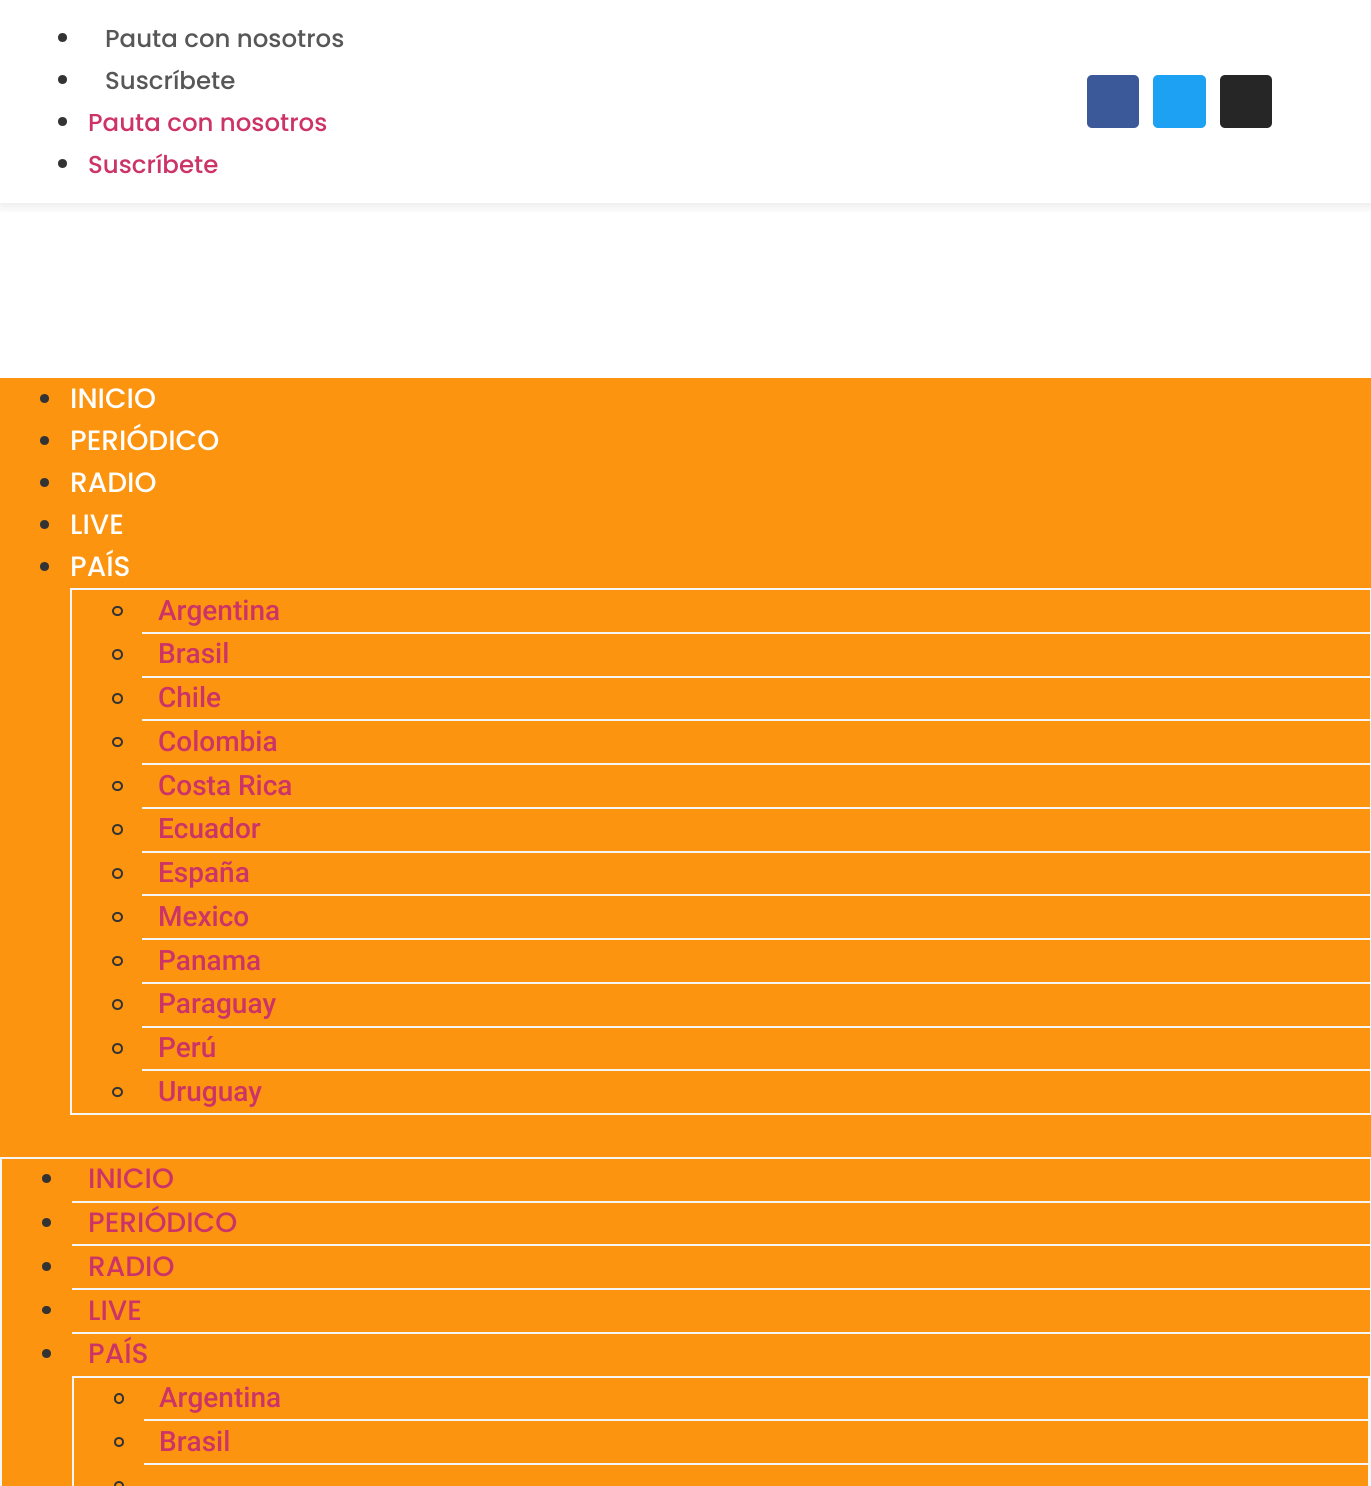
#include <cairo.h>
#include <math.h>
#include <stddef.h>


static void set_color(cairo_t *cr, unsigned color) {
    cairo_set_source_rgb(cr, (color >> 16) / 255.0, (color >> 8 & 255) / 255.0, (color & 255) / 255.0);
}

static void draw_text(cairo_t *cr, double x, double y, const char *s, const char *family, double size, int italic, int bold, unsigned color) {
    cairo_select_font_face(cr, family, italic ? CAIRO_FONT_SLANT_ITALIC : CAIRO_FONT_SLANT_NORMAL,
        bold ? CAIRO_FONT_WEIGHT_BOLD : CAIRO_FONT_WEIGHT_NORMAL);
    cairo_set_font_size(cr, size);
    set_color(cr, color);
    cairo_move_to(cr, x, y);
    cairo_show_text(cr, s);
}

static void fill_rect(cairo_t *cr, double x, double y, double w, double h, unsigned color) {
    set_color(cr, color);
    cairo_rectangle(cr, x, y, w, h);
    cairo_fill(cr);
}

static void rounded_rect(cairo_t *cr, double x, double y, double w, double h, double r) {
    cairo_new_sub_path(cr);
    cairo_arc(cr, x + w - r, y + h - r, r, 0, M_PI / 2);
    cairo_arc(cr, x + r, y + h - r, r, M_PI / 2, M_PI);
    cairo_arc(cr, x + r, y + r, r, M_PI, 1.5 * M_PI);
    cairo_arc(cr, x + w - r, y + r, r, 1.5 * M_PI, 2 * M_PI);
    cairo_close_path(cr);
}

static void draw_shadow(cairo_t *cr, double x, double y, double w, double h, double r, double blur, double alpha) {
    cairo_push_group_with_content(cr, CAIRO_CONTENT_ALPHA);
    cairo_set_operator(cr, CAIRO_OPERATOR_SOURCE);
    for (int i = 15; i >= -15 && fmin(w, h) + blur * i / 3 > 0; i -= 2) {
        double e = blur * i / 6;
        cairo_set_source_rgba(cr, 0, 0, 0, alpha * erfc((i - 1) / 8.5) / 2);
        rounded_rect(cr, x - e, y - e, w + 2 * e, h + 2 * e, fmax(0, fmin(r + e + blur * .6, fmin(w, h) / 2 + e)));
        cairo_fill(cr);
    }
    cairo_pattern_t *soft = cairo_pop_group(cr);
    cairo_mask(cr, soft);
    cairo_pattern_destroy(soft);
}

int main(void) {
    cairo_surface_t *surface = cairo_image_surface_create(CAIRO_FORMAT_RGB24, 1371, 1486);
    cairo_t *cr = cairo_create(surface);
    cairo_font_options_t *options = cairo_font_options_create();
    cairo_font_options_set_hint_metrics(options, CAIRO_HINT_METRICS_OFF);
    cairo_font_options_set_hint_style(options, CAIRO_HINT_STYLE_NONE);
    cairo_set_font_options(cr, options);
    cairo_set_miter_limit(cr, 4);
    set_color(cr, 0xFFFFFF);
    cairo_paint(cr);
    cairo_save(cr);
    cairo_rectangle(cr, 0, 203, 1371, 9);
    cairo_clip(cr);
    set_color(cr, 0x000000);
    draw_shadow(cr, 0, 0, 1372, 203, 0, 9, 0.12);
    cairo_restore(cr);
    set_color(cr, 0x333333);
    cairo_arc(cr, 62.5, 37.5, 4.5, 0, 2 * M_PI);
    cairo_fill(cr);
    draw_text(cr, 105, 47, "Pauta con nosotros", "Poppins Medium", 24.5, 0, 0, 0x575757);
    set_color(cr, 0x333333);
    cairo_new_path(cr);
    cairo_arc(cr, 62.5, 79.5, 4.5, 0, 2 * M_PI);
    cairo_fill(cr);
    draw_text(cr, 105, 89, "Suscríbete", "Poppins Medium", 24.5, 0, 0, 0x575757);
    set_color(cr, 0x333333);
    cairo_new_path(cr);
    cairo_arc(cr, 62.5, 121.5, 4.5, 0, 2 * M_PI);
    cairo_fill(cr);
    draw_text(cr, 88, 131, "Pauta con nosotros", "Poppins Medium", 24.5, 0, 0, 0xCC3366);
    set_color(cr, 0x333333);
    cairo_new_path(cr);
    cairo_arc(cr, 62.5, 163.5, 4.5, 0, 2 * M_PI);
    cairo_fill(cr);
    draw_text(cr, 88, 173, "Suscríbete", "Poppins Medium", 24.5, 0, 0, 0xCC3366);
    set_color(cr, 0x3B5998);
    rounded_rect(cr, 1087, 75, 52, 53, 5);
    cairo_fill(cr);
    set_color(cr, 0x1DA1F2);
    rounded_rect(cr, 1153, 75, 53, 53, 5);
    cairo_fill(cr);
    set_color(cr, 0x262626);
    rounded_rect(cr, 1220, 75, 52, 53, 5);
    cairo_fill(cr);
    fill_rect(cr, 0, 378, 1371, 1108, 0xFC9410);
    set_color(cr, 0x333333);
    cairo_arc(cr, 44.5, 398.5, 4.5, 0, 2 * M_PI);
    cairo_fill(cr);
    draw_text(cr, 70, 408, "INICIO", "Poppins Medium", 28, 0, 0, 0xFFFFFF);
    set_color(cr, 0x333333);
    cairo_new_path(cr);
    cairo_arc(cr, 44.5, 440.5, 4.5, 0, 2 * M_PI);
    cairo_fill(cr);
    draw_text(cr, 70, 450, "PERIÓDICO", "Poppins Medium", 28, 0, 0, 0xFFFFFF);
    set_color(cr, 0x333333);
    cairo_new_path(cr);
    cairo_arc(cr, 44.5, 482.5, 4.5, 0, 2 * M_PI);
    cairo_fill(cr);
    draw_text(cr, 70, 492, "RADIO", "Poppins Medium", 28, 0, 0, 0xFFFFFF);
    set_color(cr, 0x333333);
    cairo_new_path(cr);
    cairo_arc(cr, 44.5, 524.5, 4.5, 0, 2 * M_PI);
    cairo_fill(cr);
    draw_text(cr, 70, 534, "LIVE", "Poppins Medium", 28, 0, 0, 0xFFFFFF);
    set_color(cr, 0x333333);
    cairo_new_path(cr);
    cairo_arc(cr, 44.5, 566.5, 4.5, 0, 2 * M_PI);
    cairo_fill(cr);
    draw_text(cr, 70, 576, "PAÍS", "Poppins Medium", 28, 0, 0, 0xFFFFFF);
    cairo_rectangle(cr, 71, 589, 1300, 525);
    set_color(cr, 0xF6F6F6);
    cairo_stroke(cr);
    fill_rect(cr, 142, 632, 1228, 2, 0xF5F5F5);
    rounded_rect(cr, 113, 607, 9, 8, 4);
    set_color(cr, 0x333333);
    cairo_stroke(cr);
    draw_text(cr, 158, 620, "Argentina", "Roboto Medium", 28, 0, 0, 0xCC3366);
    fill_rect(cr, 142, 676, 1228, 2, 0xF5F5F5);
    cairo_new_path(cr);
    cairo_arc(cr, 117.5, 654.5, 4.5, 0, 2 * M_PI);
    set_color(cr, 0x333333);
    cairo_stroke(cr);
    draw_text(cr, 158, 663, "Brasil", "Roboto Medium", 28, 0, 0, 0xCC3366);
    fill_rect(cr, 142, 719, 1228, 2, 0xF5F5F5);
    cairo_new_path(cr);
    cairo_arc(cr, 117.5, 698.5, 4.5, 0, 2 * M_PI);
    set_color(cr, 0x333333);
    cairo_stroke(cr);
    draw_text(cr, 158, 707, "Chile", "Roboto Medium", 28, 0, 0, 0xCC3366);
    fill_rect(cr, 142, 763, 1228, 2, 0xF5F5F5);
    rounded_rect(cr, 113, 738, 9, 8, 4);
    set_color(cr, 0x333333);
    cairo_stroke(cr);
    draw_text(cr, 158, 751, "Colombia", "Roboto Medium", 28, 0, 0, 0xCC3366);
    fill_rect(cr, 142, 807, 1228, 2, 0xF5F5F5);
    rounded_rect(cr, 113, 782, 9, 8, 4);
    set_color(cr, 0x333333);
    cairo_stroke(cr);
    draw_text(cr, 158, 795, "Costa Rica", "Roboto Medium", 28, 0, 0, 0xCC3366);
    fill_rect(cr, 142, 851, 1228, 2, 0xF5F5F5);
    cairo_new_path(cr);
    cairo_arc(cr, 117.5, 829.5, 4.5, 0, 2 * M_PI);
    set_color(cr, 0x333333);
    cairo_stroke(cr);
    draw_text(cr, 158, 838, "Ecuador", "Roboto Medium", 28, 0, 0, 0xCC3366);
    fill_rect(cr, 142, 894, 1228, 2, 0xF5F5F5);
    cairo_new_path(cr);
    cairo_arc(cr, 117.5, 873.5, 4.5, 0, 2 * M_PI);
    set_color(cr, 0x333333);
    cairo_stroke(cr);
    draw_text(cr, 158, 882, "España", "Roboto Medium", 28, 0, 0, 0xCC3366);
    fill_rect(cr, 142, 938, 1228, 2, 0xF5F5F5);
    rounded_rect(cr, 113, 913, 9, 8, 4);
    set_color(cr, 0x333333);
    cairo_stroke(cr);
    draw_text(cr, 158, 926, "Mexico", "Roboto Medium", 28, 0, 0, 0xCC3366);
    fill_rect(cr, 142, 982, 1228, 2, 0xF5F5F5);
    rounded_rect(cr, 113, 957, 9, 8, 4);
    set_color(cr, 0x333333);
    cairo_stroke(cr);
    draw_text(cr, 158, 970, "Panama", "Roboto Medium", 28, 0, 0, 0xCC3366);
    fill_rect(cr, 142, 1026, 1228, 2, 0xF5F5F5);
    cairo_new_path(cr);
    cairo_arc(cr, 117.5, 1004.5, 4.5, 0, 2 * M_PI);
    set_color(cr, 0x333333);
    cairo_stroke(cr);
    draw_text(cr, 158, 1013, "Paraguay", "Roboto Medium", 28, 0, 0, 0xCC3366);
    fill_rect(cr, 142, 1069, 1228, 2, 0xF5F5F5);
    cairo_new_path(cr);
    cairo_arc(cr, 117.5, 1048.5, 4.5, 0, 2 * M_PI);
    set_color(cr, 0x333333);
    cairo_stroke(cr);
    draw_text(cr, 158, 1057, "Perú", "Roboto Medium", 28, 0, 0, 0xCC3366);
    rounded_rect(cr, 113, 1088, 9, 8, 4);
    set_color(cr, 0x333333);
    cairo_stroke(cr);
    draw_text(cr, 158, 1101, "Uruguay", "Roboto Medium", 28, 0, 0, 0xCC3366);
    cairo_rectangle(cr, 1, 1158, 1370, 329);
    set_color(cr, 0xF6F6F6);
    cairo_stroke(cr);
    fill_rect(cr, 72, 1201, 1298, 2, 0xF5F5F5);
    set_color(cr, 0x333333);
    cairo_arc(cr, 46.5, 1178.5, 4.5, 0, 2 * M_PI);
    cairo_fill(cr);
    draw_text(cr, 88, 1188, "INICIO", "Poppins Medium", 28, 0, 0, 0xCC3366);
    fill_rect(cr, 72, 1244, 1298, 2, 0xF5F5F5);
    set_color(cr, 0x333333);
    cairo_new_path(cr);
    cairo_arc(cr, 46.5, 1222.5, 4.5, 0, 2 * M_PI);
    cairo_fill(cr);
    draw_text(cr, 88, 1232, "PERIÓDICO", "Poppins Medium", 28, 0, 0, 0xCC3366);
    fill_rect(cr, 72, 1288, 1298, 2, 0xF5F5F5);
    set_color(cr, 0x333333);
    cairo_new_path(cr);
    cairo_arc(cr, 46.5, 1266.5, 4.5, 0, 2 * M_PI);
    cairo_fill(cr);
    draw_text(cr, 88, 1276, "RADIO", "Poppins Medium", 28, 0, 0, 0xCC3366);
    fill_rect(cr, 72, 1332, 1298, 2, 0xF5F5F5);
    set_color(cr, 0x333333);
    rounded_rect(cr, 42, 1306, 9, 8, 4);
    cairo_fill(cr);
    draw_text(cr, 88, 1320, "LIVE", "Poppins Medium", 28, 0, 0, 0xCC3366);
    set_color(cr, 0x333333);
    cairo_new_path(cr);
    cairo_arc(cr, 46.5, 1353.5, 4.5, 0, 2 * M_PI);
    cairo_fill(cr);
    draw_text(cr, 88, 1363, "PAÍS", "Poppins Medium", 28, 0, 0, 0xCC3366);
    cairo_rectangle(cr, 73, 1377, 1296, 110);
    set_color(cr, 0xF6F6F6);
    cairo_stroke(cr);
    fill_rect(cr, 144, 1419, 1225, 2, 0xF5F5F5);
    rounded_rect(cr, 115, 1394, 8, 9, 4);
    set_color(cr, 0x333333);
    cairo_stroke(cr);
    draw_text(cr, 159, 1407, "Argentina", "Roboto Medium", 28, 0, 0, 0xCC3366);
    fill_rect(cr, 144, 1463, 1225, 2, 0xF5F5F5);
    cairo_new_path(cr);
    cairo_arc(cr, 119, 1442, 4, 0, 2 * M_PI);
    set_color(cr, 0x333333);
    cairo_stroke(cr);
    draw_text(cr, 159, 1451, "Brasil", "Roboto Medium", 28, 0, 0, 0xCC3366);
    cairo_new_path(cr);
    cairo_arc(cr, 119, 1486, 4, 0, 2 * M_PI);
    set_color(cr, 0x333333);
    cairo_stroke(cr);
    cairo_surface_write_to_png(surface, "output.png");
    cairo_font_options_destroy(options);
    cairo_destroy(cr);
    cairo_surface_destroy(surface);
    return 0;
}
